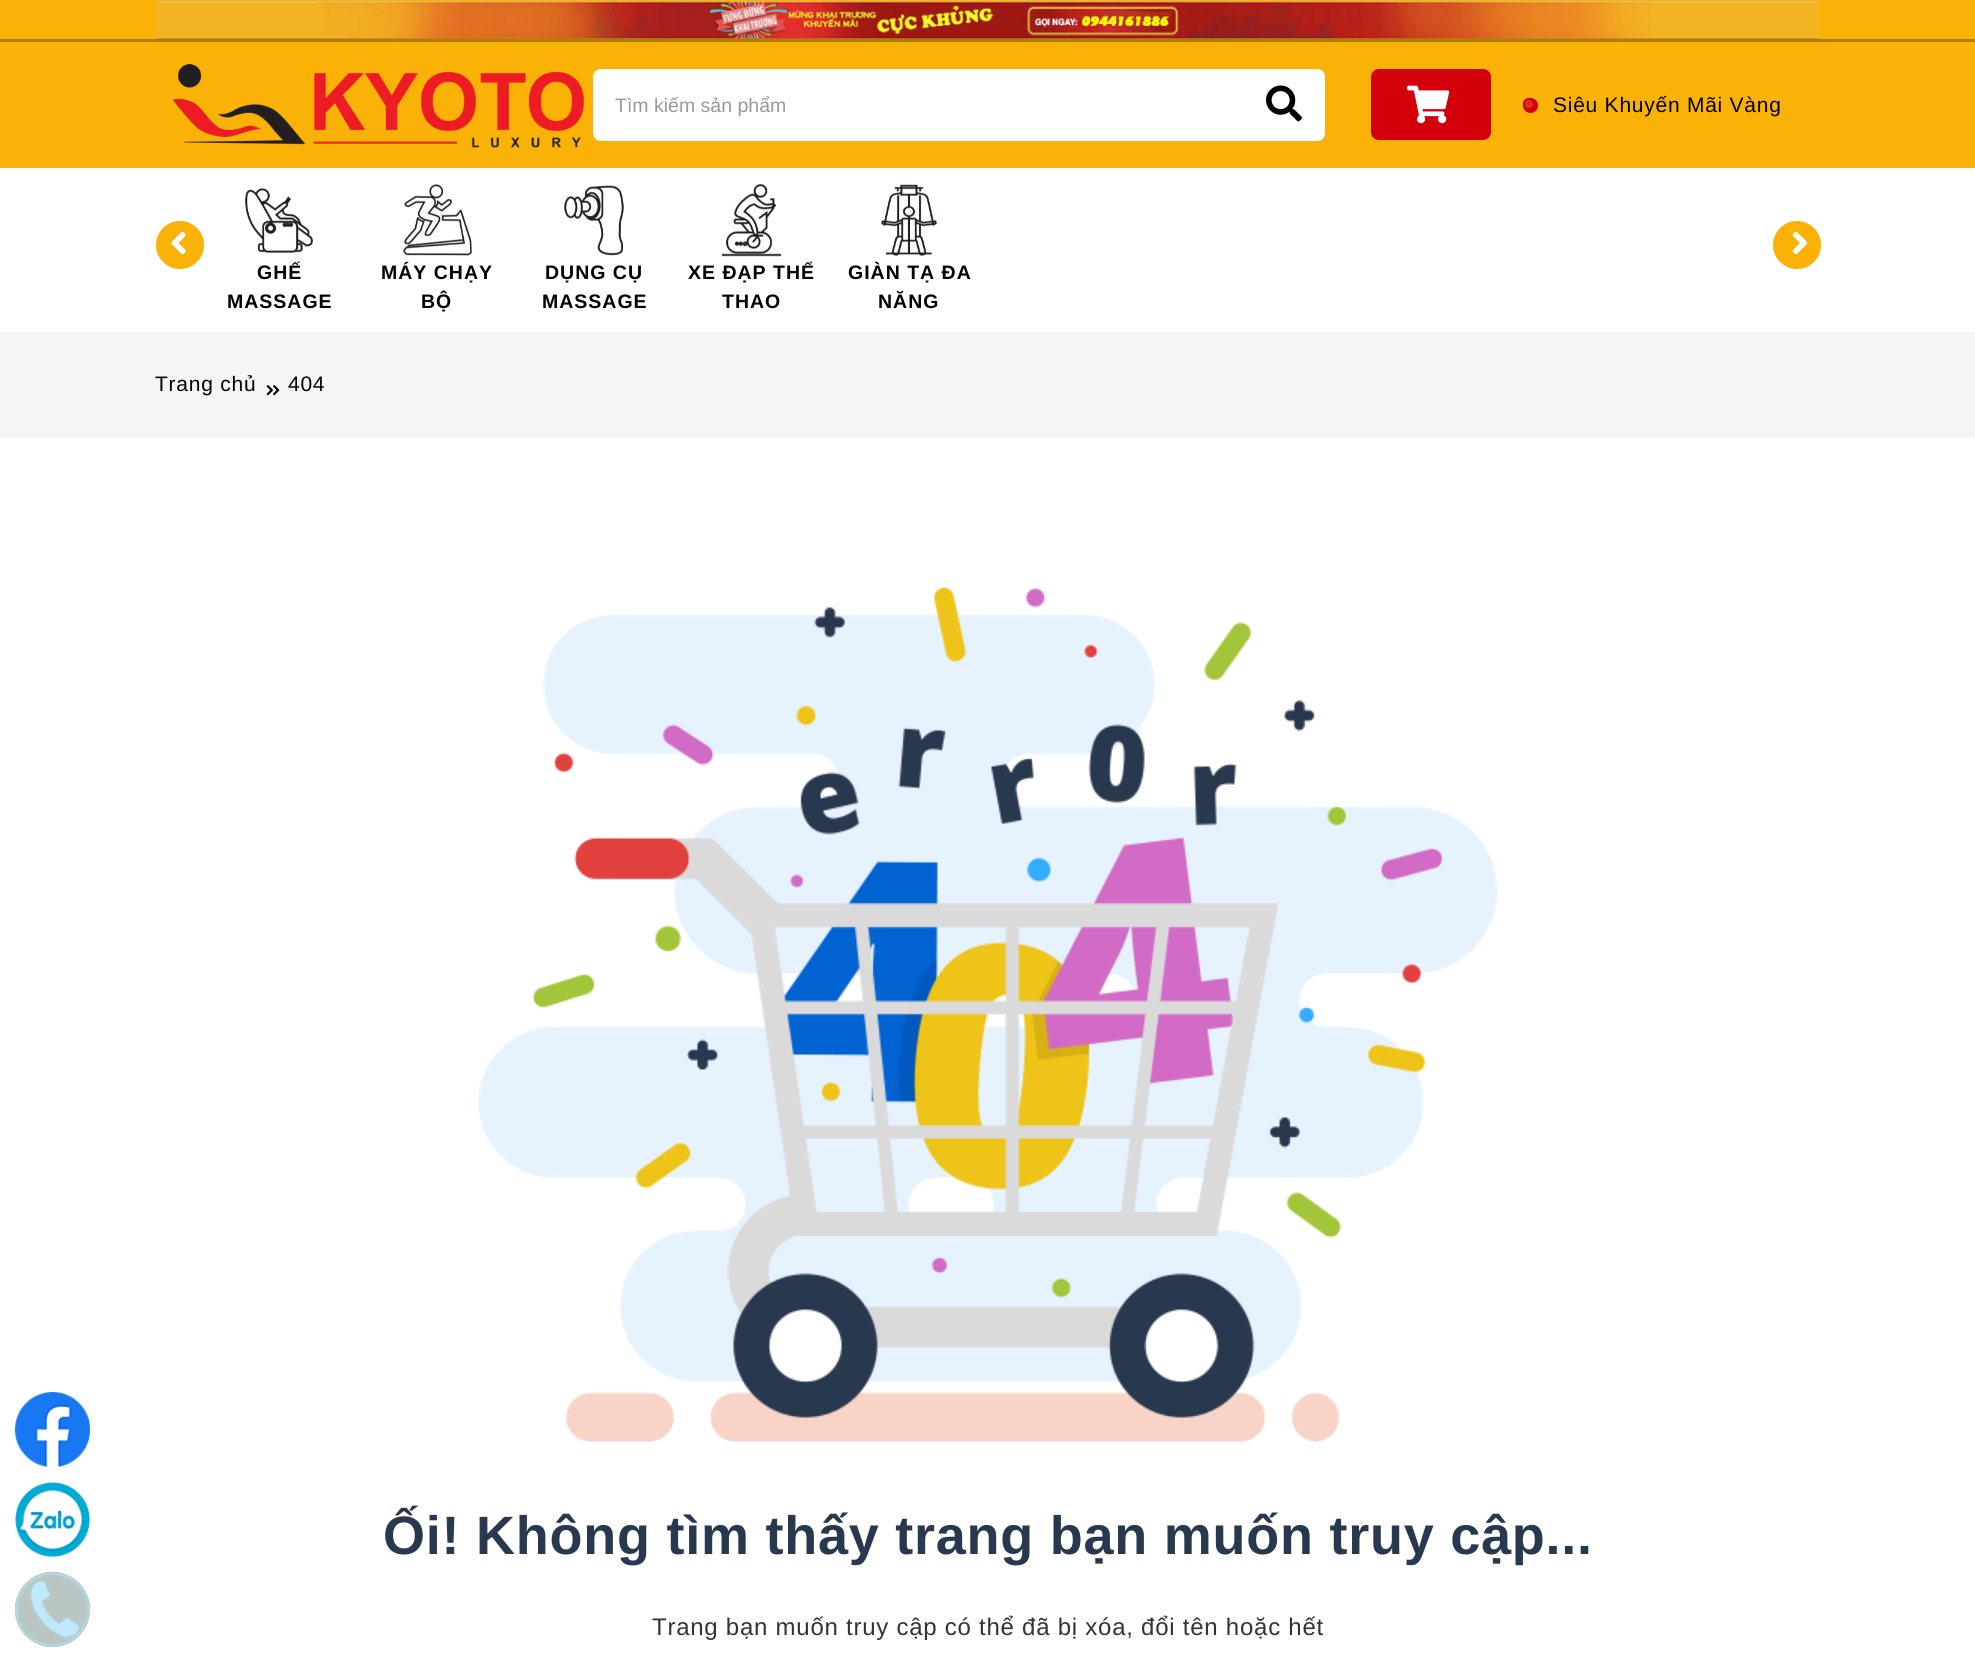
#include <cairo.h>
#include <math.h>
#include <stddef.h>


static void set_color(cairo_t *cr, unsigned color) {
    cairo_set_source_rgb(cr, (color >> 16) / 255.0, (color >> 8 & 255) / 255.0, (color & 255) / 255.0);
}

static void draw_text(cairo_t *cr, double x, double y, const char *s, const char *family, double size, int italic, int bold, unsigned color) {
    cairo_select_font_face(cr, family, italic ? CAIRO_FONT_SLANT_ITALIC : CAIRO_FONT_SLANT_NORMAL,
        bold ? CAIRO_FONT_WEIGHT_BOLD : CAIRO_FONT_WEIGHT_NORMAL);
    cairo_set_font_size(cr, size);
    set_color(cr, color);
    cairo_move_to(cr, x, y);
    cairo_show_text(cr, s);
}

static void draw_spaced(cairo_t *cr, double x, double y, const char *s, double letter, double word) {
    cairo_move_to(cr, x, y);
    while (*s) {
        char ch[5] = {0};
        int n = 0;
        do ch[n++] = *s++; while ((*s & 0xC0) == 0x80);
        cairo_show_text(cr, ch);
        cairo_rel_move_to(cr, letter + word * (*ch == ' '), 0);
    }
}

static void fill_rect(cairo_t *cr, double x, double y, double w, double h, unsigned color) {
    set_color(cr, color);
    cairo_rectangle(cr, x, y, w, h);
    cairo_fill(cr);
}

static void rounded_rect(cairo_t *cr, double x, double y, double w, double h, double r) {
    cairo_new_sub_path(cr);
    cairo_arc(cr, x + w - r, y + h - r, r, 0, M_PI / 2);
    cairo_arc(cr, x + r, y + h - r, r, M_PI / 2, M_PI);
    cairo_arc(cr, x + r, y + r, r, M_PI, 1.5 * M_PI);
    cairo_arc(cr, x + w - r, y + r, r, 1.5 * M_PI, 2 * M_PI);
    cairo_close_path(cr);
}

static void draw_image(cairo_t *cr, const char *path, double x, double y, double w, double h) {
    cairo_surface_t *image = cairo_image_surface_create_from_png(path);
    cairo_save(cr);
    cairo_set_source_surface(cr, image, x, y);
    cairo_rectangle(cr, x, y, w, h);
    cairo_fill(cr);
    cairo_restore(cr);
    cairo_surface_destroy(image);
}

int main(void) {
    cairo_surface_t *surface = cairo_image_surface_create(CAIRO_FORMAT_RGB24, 1975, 1662);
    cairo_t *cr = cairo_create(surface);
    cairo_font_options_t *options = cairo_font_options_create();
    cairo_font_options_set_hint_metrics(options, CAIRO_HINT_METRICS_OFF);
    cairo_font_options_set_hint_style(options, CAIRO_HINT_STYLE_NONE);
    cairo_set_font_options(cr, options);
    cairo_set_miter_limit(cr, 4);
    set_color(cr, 0xFFFFFF);
    cairo_paint(cr);
    fill_rect(cr, 0, 0, 1975, 39, 0xFAB206);
    fill_rect(cr, 0, 39, 1975, 3, 0xAF7D04);
    draw_image(cr, "assets/img1.png", 156, 1, 1664, 38);
    fill_rect(cr, 0, 42, 1975, 126, 0xFAB206);
    draw_image(cr, "assets/img2.png", 172, 64, 412, 84);
    set_color(cr, 0xFFFFFF);
    rounded_rect(cr, 593, 69, 732, 72, 8);
    cairo_fill(cr);
    draw_text(cr, 615, 112, "Tìm kiếm sản phẩm", "Liberation Sans", 19.5, 0, 0, 0x999999);
    set_color(cr, 0xFFFFFF);
    cairo_new_path(cr);
    cairo_move_to(cr, 1244, 69);
    cairo_line_to(cr, 1317, 69);
    cairo_curve_to(cr, 1321.5, 69, 1325, 72.5, 1325, 77);
    cairo_line_to(cr, 1325, 133);
    cairo_curve_to(cr, 1325, 137.5, 1321.5, 141, 1317, 141);
    cairo_line_to(cr, 1244, 141);
    cairo_close_path(cr);
    cairo_fill(cr);
    draw_image(cr, "assets/img3.png", 1266, 85, 36, 37);
    set_color(cr, 0xD3000B);
    rounded_rect(cr, 1372, 70, 118, 69, 7);
    cairo_fill_preserve(cr);
    cairo_stroke(cr);
    draw_image(cr, "assets/img4.png", 1407, 85, 43, 39);
    cairo_arc(cr, 1530.5, 105.5, 7.5, 0, 2 * M_PI);
    cairo_fill(cr);
    cairo_set_source_rgba(cr, 1, 0.902, 0.42, 0.2);
    cairo_arc(cr, 1529, 104, 5, 0, 2 * M_PI);
    cairo_fill_preserve(cr);
    set_color(cr, 0xD3000B);
    cairo_stroke(cr);
    cairo_set_font_size(cr, 21);
    set_color(cr, 0x000000);
    draw_spaced(cr, 1553, 112, "Siêu Khuyến Mãi Vàng", 0.75, 0);
    set_color(cr, 0xFAB206);
    cairo_new_path(cr);
    cairo_arc(cr, 180, 245, 24, 0, 2 * M_PI);
    cairo_fill(cr);
    draw_image(cr, "assets/img5.png", 171, 231, 15, 24);
    cairo_arc(cr, 1797, 245, 24, 0, 2 * M_PI);
    cairo_fill(cr);
    draw_image(cr, "assets/img6.png", 1792, 231, 16, 24);
    draw_image(cr, "assets/img7.png", 245, 188, 68, 65);
    cairo_select_font_face(cr, "Liberation Sans", CAIRO_FONT_SLANT_NORMAL, CAIRO_FONT_WEIGHT_BOLD);
    cairo_set_font_size(cr, 19.5);
    set_color(cr, 0x000000);
    draw_spaced(cr, 257, 279, "GHẾ", 1, 0);
    draw_spaced(cr, 227, 308, "MASSAGE", 1, 0);
    draw_image(cr, "assets/img8.png", 403, 184, 69, 72);
    draw_spaced(cr, 381, 279, "MÁY CHẠY", 1, 0);
    draw_spaced(cr, 421, 308, "BỘ", 1, 0);
    draw_image(cr, "assets/img9.png", 564, 185, 60, 71);
    draw_spaced(cr, 545, 279, "DỤNG CỤ", 1, 0);
    draw_spaced(cr, 542, 308, "MASSAGE", 1, 0);
    draw_image(cr, "assets/img10.png", 721, 184, 61, 73);
    draw_spaced(cr, 688, 279, "XE ĐẠP THỂ", 1, 0);
    draw_spaced(cr, 722, 308, "THAO", 1, 0);
    draw_image(cr, "assets/img11.png", 881, 184, 56, 72);
    draw_spaced(cr, 848, 279, "GIÀN TẠ ĐA", 1, 0);
    draw_spaced(cr, 878, 308, "NĂNG", 1, 0);
    fill_rect(cr, 0, 332, 1975, 106, 0xF5F5F5);
    cairo_select_font_face(cr, "Liberation Sans", CAIRO_FONT_SLANT_NORMAL, CAIRO_FONT_WEIGHT_NORMAL);
    cairo_set_font_size(cr, 21);
    set_color(cr, 0x000000);
    draw_spaced(cr, 155, 391, "Trang chủ", 0.75, 0);
    draw_image(cr, "assets/img12.png", 266, 385, 14, 11);
    draw_spaced(cr, 288, 391, "404", 0.75, 0);
    draw_image(cr, "assets/img13.png", 15, 1392, 75, 75);
    draw_image(cr, "assets/img14.png", 15, 1482, 75, 75);
    set_color(cr, 0xF46F20);
    cairo_arc(cr, 52.5, 1609.5, 37.5, 0, 2 * M_PI);
    cairo_fill(cr);
    draw_image(cr, "assets/img15.png", 30, 1580, 49, 58);
    cairo_arc(cr, 52.5, 1609.5, 36, 0, 2 * M_PI);
    cairo_set_source_rgba(cr, 0.749, 0.922, 0.988, 0.5);
    cairo_set_line_width(cr, 3);
    cairo_stroke(cr);
    cairo_set_source_rgba(cr, 0.651, 0.89, 0.98, 0.75);
    cairo_arc(cr, 52.5, 1609.5, 37.5, 0, 2 * M_PI);
    cairo_fill(cr);
    draw_image(cr, "assets/img16.png", 478, 588, 1019, 854);
    cairo_select_font_face(cr, "Liberation Sans", CAIRO_FONT_SLANT_NORMAL, CAIRO_FONT_WEIGHT_BOLD);
    cairo_set_font_size(cr, 54);
    set_color(cr, 0x28384F);
    draw_spaced(cr, 383, 1554, "Ối! Không tìm thấy trang bạn muốn truy cập...", 0.75, 0);
    cairo_select_font_face(cr, "Liberation Sans", CAIRO_FONT_SLANT_NORMAL, CAIRO_FONT_WEIGHT_NORMAL);
    cairo_set_font_size(cr, 24);
    set_color(cr, 0x333333);
    draw_spaced(cr, 652, 1635, "Trang bạn muốn truy cập có thể đã bị xóa, đổi tên hoặc hết", 0.75, 0);
    cairo_surface_write_to_png(surface, "output.png");
    cairo_font_options_destroy(options);
    cairo_destroy(cr);
    cairo_surface_destroy(surface);
    return 0;
}
